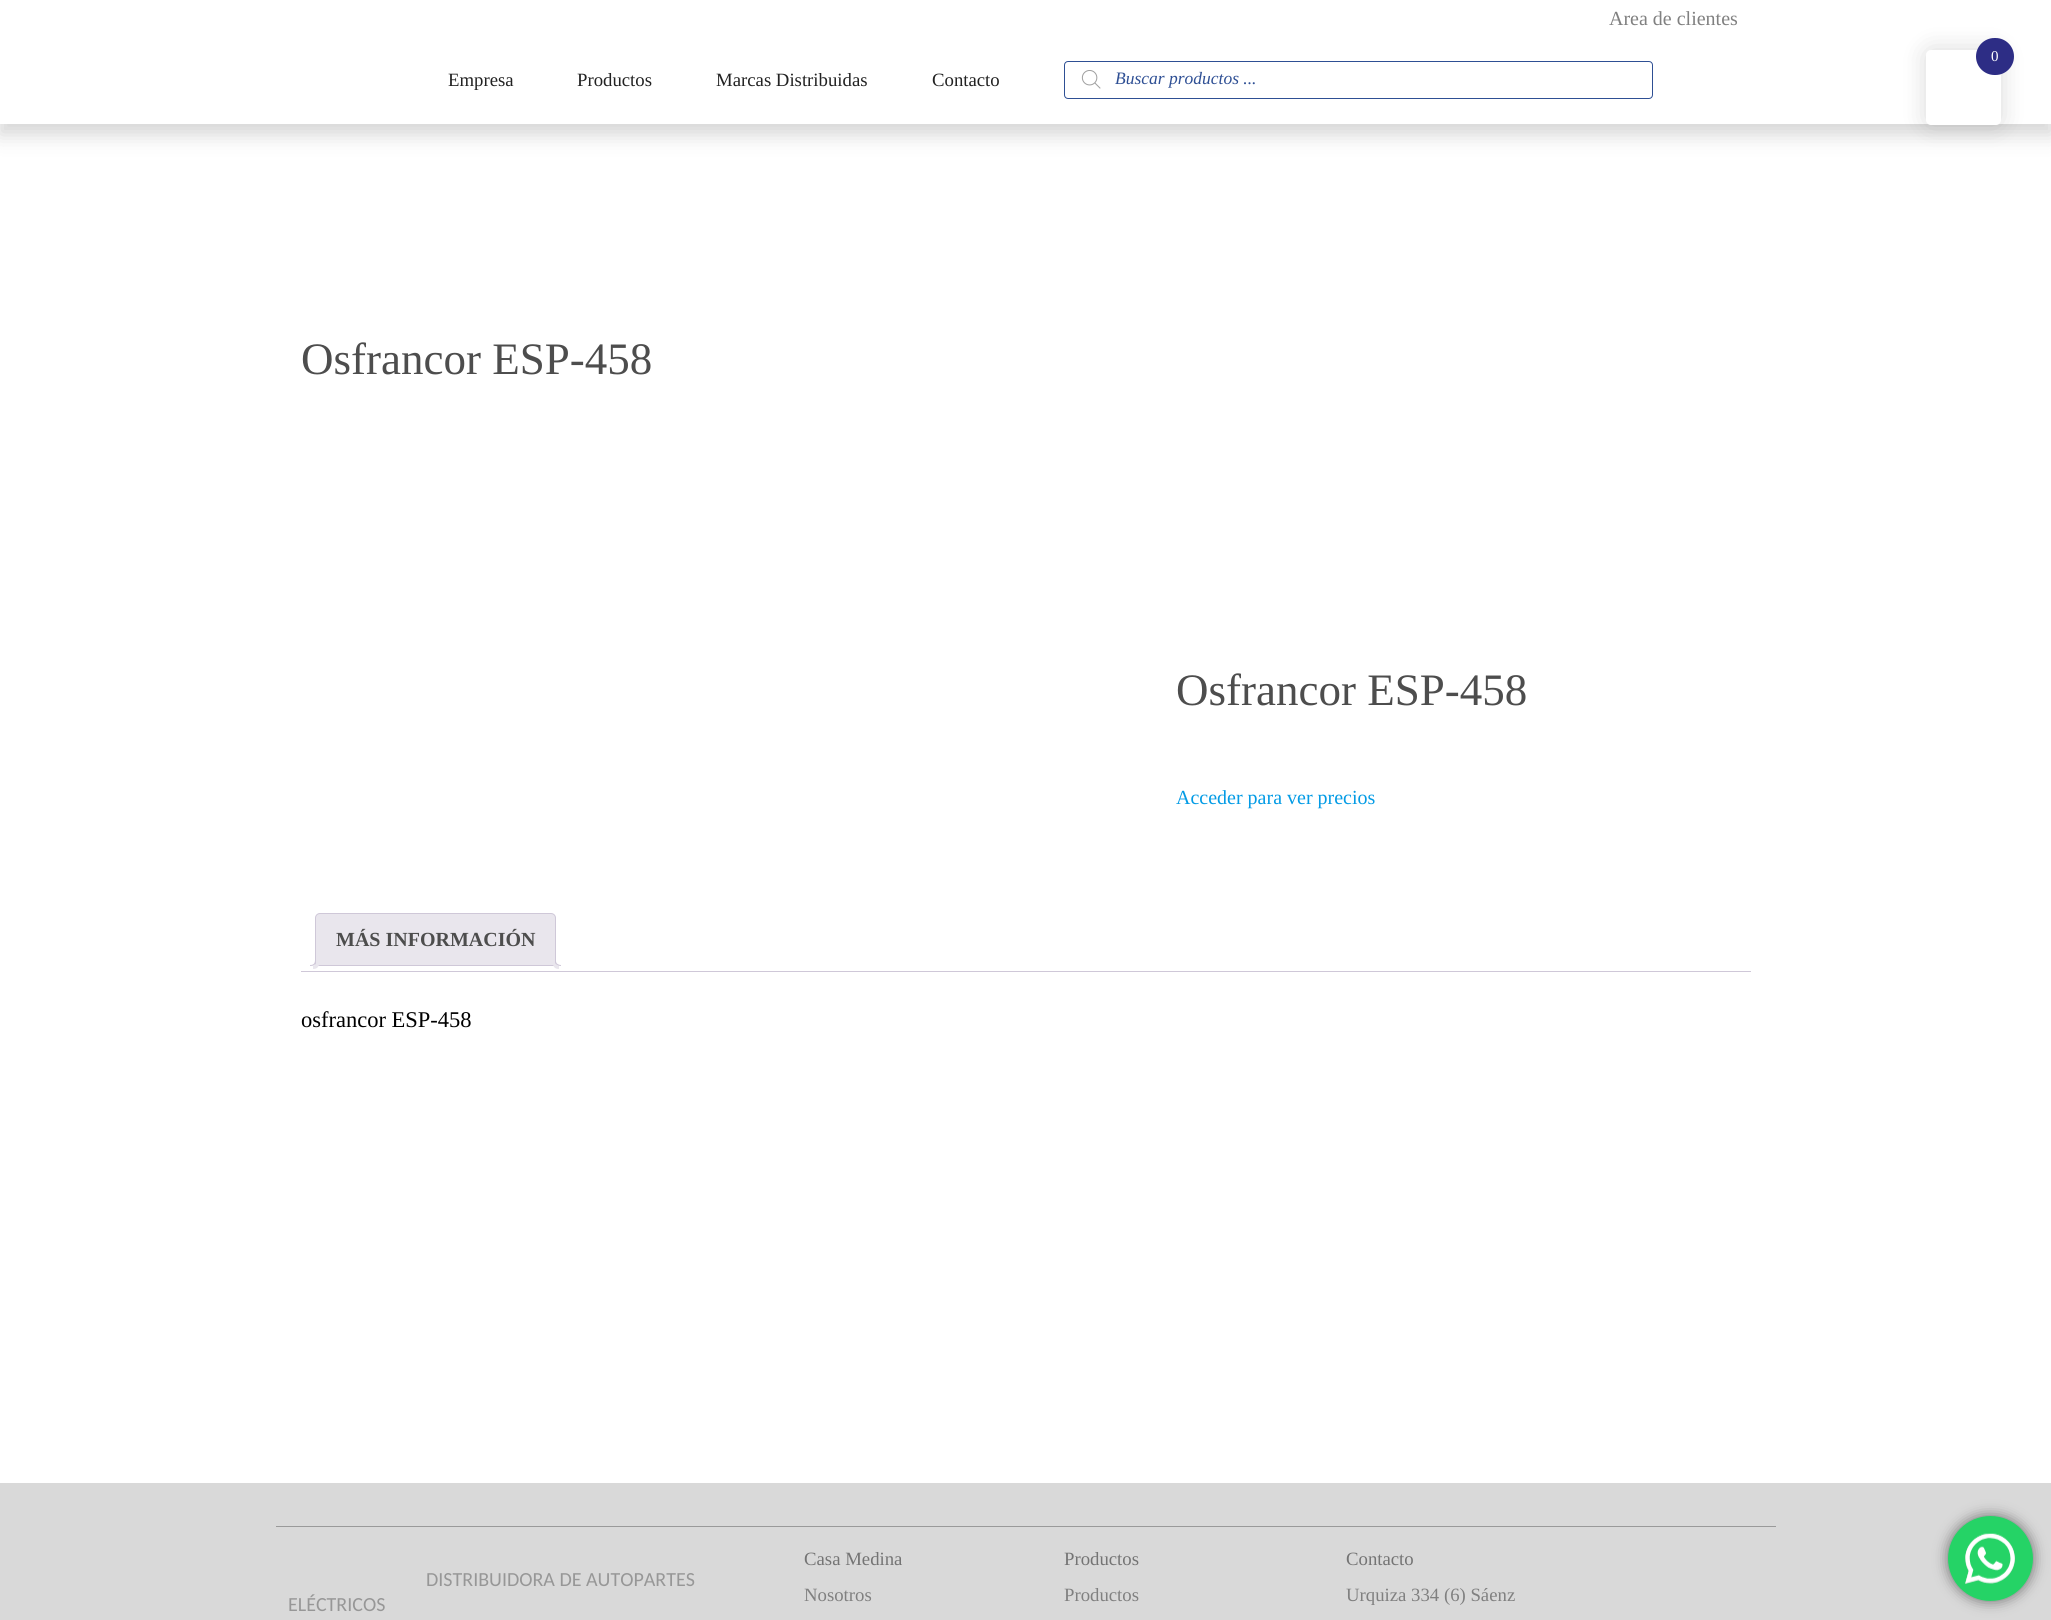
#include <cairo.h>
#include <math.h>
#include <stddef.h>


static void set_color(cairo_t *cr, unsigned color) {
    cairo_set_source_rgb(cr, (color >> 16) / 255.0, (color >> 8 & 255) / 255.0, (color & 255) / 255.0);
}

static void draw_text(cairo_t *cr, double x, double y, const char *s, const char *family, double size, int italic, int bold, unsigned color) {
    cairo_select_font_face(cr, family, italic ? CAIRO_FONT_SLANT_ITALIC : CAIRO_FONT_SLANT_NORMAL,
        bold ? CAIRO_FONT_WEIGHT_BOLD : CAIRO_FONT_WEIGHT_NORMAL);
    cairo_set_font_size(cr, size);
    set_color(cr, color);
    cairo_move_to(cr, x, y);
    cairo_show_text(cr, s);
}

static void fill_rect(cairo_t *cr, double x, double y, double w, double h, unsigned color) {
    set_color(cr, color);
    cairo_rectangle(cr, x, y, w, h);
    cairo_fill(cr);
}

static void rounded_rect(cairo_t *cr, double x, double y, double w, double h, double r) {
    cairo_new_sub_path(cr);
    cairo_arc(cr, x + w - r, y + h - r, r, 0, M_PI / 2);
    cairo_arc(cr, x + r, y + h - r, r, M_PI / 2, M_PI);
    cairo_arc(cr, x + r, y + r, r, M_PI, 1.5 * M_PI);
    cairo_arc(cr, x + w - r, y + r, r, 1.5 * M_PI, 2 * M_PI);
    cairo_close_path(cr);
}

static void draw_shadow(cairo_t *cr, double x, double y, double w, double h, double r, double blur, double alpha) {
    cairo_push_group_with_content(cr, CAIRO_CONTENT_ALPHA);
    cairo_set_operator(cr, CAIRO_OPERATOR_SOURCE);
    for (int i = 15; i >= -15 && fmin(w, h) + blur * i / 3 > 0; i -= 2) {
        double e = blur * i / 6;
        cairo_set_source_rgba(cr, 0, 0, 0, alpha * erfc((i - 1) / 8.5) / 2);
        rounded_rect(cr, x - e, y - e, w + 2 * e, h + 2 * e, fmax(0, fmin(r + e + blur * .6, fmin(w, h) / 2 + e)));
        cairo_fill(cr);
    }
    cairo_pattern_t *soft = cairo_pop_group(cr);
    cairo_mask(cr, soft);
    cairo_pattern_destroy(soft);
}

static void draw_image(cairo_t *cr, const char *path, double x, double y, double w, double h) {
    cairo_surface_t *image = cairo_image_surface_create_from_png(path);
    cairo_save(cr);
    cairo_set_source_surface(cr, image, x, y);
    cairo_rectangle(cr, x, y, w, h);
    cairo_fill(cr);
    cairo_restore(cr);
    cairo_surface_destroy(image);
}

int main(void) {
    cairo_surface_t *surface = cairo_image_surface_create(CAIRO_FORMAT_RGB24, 2051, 1620);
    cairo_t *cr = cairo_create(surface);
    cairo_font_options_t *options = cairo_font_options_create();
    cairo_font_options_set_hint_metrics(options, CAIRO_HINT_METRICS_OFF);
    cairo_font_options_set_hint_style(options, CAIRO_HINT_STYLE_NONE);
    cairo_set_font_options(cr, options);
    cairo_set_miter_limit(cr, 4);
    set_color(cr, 0xFFFFFF);
    cairo_paint(cr);
    set_color(cr, 0x323232);
    draw_shadow(cr, -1, 9, 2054, 126, 0, 10, 0.2);
    fill_rect(cr, 0, 0, 2051, 124, 0xFFFFFF);
    draw_text(cr, 1609, 25, "Area de clientes", "Liberation Serif", 20, 0, 0, 0x808080);
    draw_text(cr, 448, 86, "Empresa", "Liberation Serif", 18.75, 0, 0, 0x222222);
    draw_text(cr, 577, 86, "Productos", "Liberation Serif", 18.75, 0, 0, 0x222222);
    draw_text(cr, 716, 86, "Marcas Distribuidas", "Liberation Serif", 18.75, 0, 0, 0x222222);
    draw_text(cr, 932, 86, "Contacto", "Liberation Serif", 18.75, 0, 0, 0x222222);
    rounded_rect(cr, 1064.5, 61.5, 588, 37, 3.5);
    set_color(cr, 0x2E4F94);
    cairo_set_line_width(cr, 1);
    cairo_stroke(cr);
    draw_image(cr, "assets/img1.png", 1081, 70, 20, 19);
    draw_text(cr, 1115, 84, "Buscar productos ...", "Liberation Serif", 17.5, 1, 0, 0x2E4F94);
    set_color(cr, 0x000000);
    draw_shadow(cr, 1926, 50, 75, 75, 5, 12.5, 0.15);
    set_color(cr, 0xFFFFFF);
    rounded_rect(cr, 1926, 50, 75, 75, 5);
    cairo_fill(cr);
    set_color(cr, 0x2D2D85);
    rounded_rect(cr, 1976, 38, 38, 37, 18.5);
    cairo_fill(cr);
    draw_text(cr, 1991, 61, "0", "Liberation Serif", 15, 0, 0, 0xFFFFFF);
    draw_text(cr, 301, 374, "Osfrancor ESP-458", "Liberation Serif", 45, 0, 0, 0x4D4D4D);
    draw_text(cr, 1176, 705, "Osfrancor ESP-458", "Liberation Serif", 45, 0, 0, 0x4D4D4D);
    draw_text(cr, 1176, 804, "Acceder para ver precios", "Liberation Serif", 20, 0, 0, 0x039BE5);
    set_color(cr, 0xE9E6ED);
    cairo_new_path(cr);
    cairo_move_to(cr, 320, 913.5);
    cairo_line_to(cr, 551, 913.5);
    cairo_curve_to(cr, 553.5, 913.5, 555.5, 915.5, 555.5, 918);
    cairo_line_to(cr, 555.5, 965.5);
    cairo_line_to(cr, 315.5, 965.5);
    cairo_line_to(cr, 315.5, 918);
    cairo_curve_to(cr, 315.5, 915.5, 317.5, 913.5, 320, 913.5);
    cairo_close_path(cr);
    cairo_fill_preserve(cr);
    set_color(cr, 0xCFC8D8);
    cairo_stroke(cr);
    draw_text(cr, 336, 946, "MÁS INFORMACIÓN", "Liberation Serif", 20, 0, 1, 0x4D4D4D);
    set_color(cr, 0xE9E6ED);
    cairo_new_path(cr);
    cairo_move_to(cr, 313, 966);
    cairo_line_to(cr, 313, 969);
    cairo_curve_to(cr, 317, 969, 319, 967, 319, 963);
    cairo_line_to(cr, 316, 963);
    cairo_curve_to(cr, 315.5, 964.5, 314.5, 965.5, 313, 966);
    cairo_close_path(cr);
    cairo_fill(cr);
    set_color(cr, 0xCFC8D8);
    cairo_set_fill_rule(cr, CAIRO_FILL_RULE_EVEN_ODD);
    cairo_new_path(cr);
    cairo_move_to(cr, 310, 960);
    cairo_line_to(cr, 316, 960);
    cairo_curve_to(cr, 316, 964.5, 314.5, 966, 310, 966);
    cairo_close_path(cr);
    cairo_move_to(cr, 310, 960);
    cairo_line_to(cr, 315, 960);
    cairo_curve_to(cr, 315, 963.5, 313.5, 965, 310, 965);
    cairo_close_path(cr);
    cairo_fill(cr);
    set_color(cr, 0xE9E6ED);
    cairo_set_fill_rule(cr, CAIRO_FILL_RULE_WINDING);
    cairo_new_path(cr);
    cairo_move_to(cr, 553, 963);
    cairo_curve_to(cr, 553, 967, 555, 969, 559, 969);
    cairo_line_to(cr, 559, 966);
    cairo_curve_to(cr, 557.5, 966, 556, 964.5, 555.5, 963);
    cairo_close_path(cr);
    cairo_fill(cr);
    set_color(cr, 0xCFC8D8);
    cairo_set_fill_rule(cr, CAIRO_FILL_RULE_EVEN_ODD);
    cairo_new_path(cr);
    cairo_move_to(cr, 555, 960);
    cairo_line_to(cr, 561, 960);
    cairo_line_to(cr, 561, 966);
    cairo_curve_to(cr, 558, 966, 555, 965, 555, 961);
    cairo_close_path(cr);
    cairo_move_to(cr, 556, 960);
    cairo_line_to(cr, 561, 960);
    cairo_line_to(cr, 561, 965);
    cairo_curve_to(cr, 559, 965, 556, 964, 556, 961);
    cairo_close_path(cr);
    cairo_fill(cr);
    fill_rect(cr, 301, 971, 1450, 1, 0xCFC8D8);
    draw_text(cr, 301, 1027, "osfrancor ESP-458", "Liberation Serif", 22.5, 0, 0, 0x000000);
    fill_rect(cr, 0, 1483, 2051, 137, 0xD9D9D9);
    fill_rect(cr, 276, 1526, 1500, 1, 0x9A9A9A);
    draw_text(cr, 426, 1586, "DISTRIBUIDORA DE AUTOPARTES", "Carlito", 20, 0, 0, 0x979797);
    draw_text(cr, 288, 1611, "ELÉCTRICOS", "Carlito", 20, 0, 0, 0x979797);
    draw_text(cr, 804, 1565, "Casa Medina", "Liberation Serif", 18.75, 0, 0, 0x747474);
    draw_text(cr, 804, 1601, "Nosotros", "Liberation Serif", 18.75, 0, 0, 0x808080);
    draw_text(cr, 1064, 1565, "Productos", "Liberation Serif", 18.75, 0, 0, 0x747474);
    draw_text(cr, 1064, 1601, "Productos", "Liberation Serif", 18.75, 0, 0, 0x808080);
    draw_text(cr, 1346, 1565, "Contacto", "Liberation Serif", 18.75, 0, 0, 0x747474);
    draw_text(cr, 1346, 1601, "Urquiza 334 (6) Sáenz", "Liberation Serif", 18.75, 0, 0, 0x808080);
    set_color(cr, 0x000000);
    draw_shadow(cr, 1948, 1516, 85, 85, 42.5, 7, 0.5);
    set_color(cr, 0x25D366);
    cairo_arc(cr, 1990.5, 1558.5, 42.5, 0, 2 * M_PI);
    cairo_fill(cr);
    draw_image(cr, "assets/img2.png", 1965, 1533, 50, 51);
    cairo_surface_write_to_png(surface, "output.png");
    cairo_font_options_destroy(options);
    cairo_destroy(cr);
    cairo_surface_destroy(surface);
    return 0;
}
